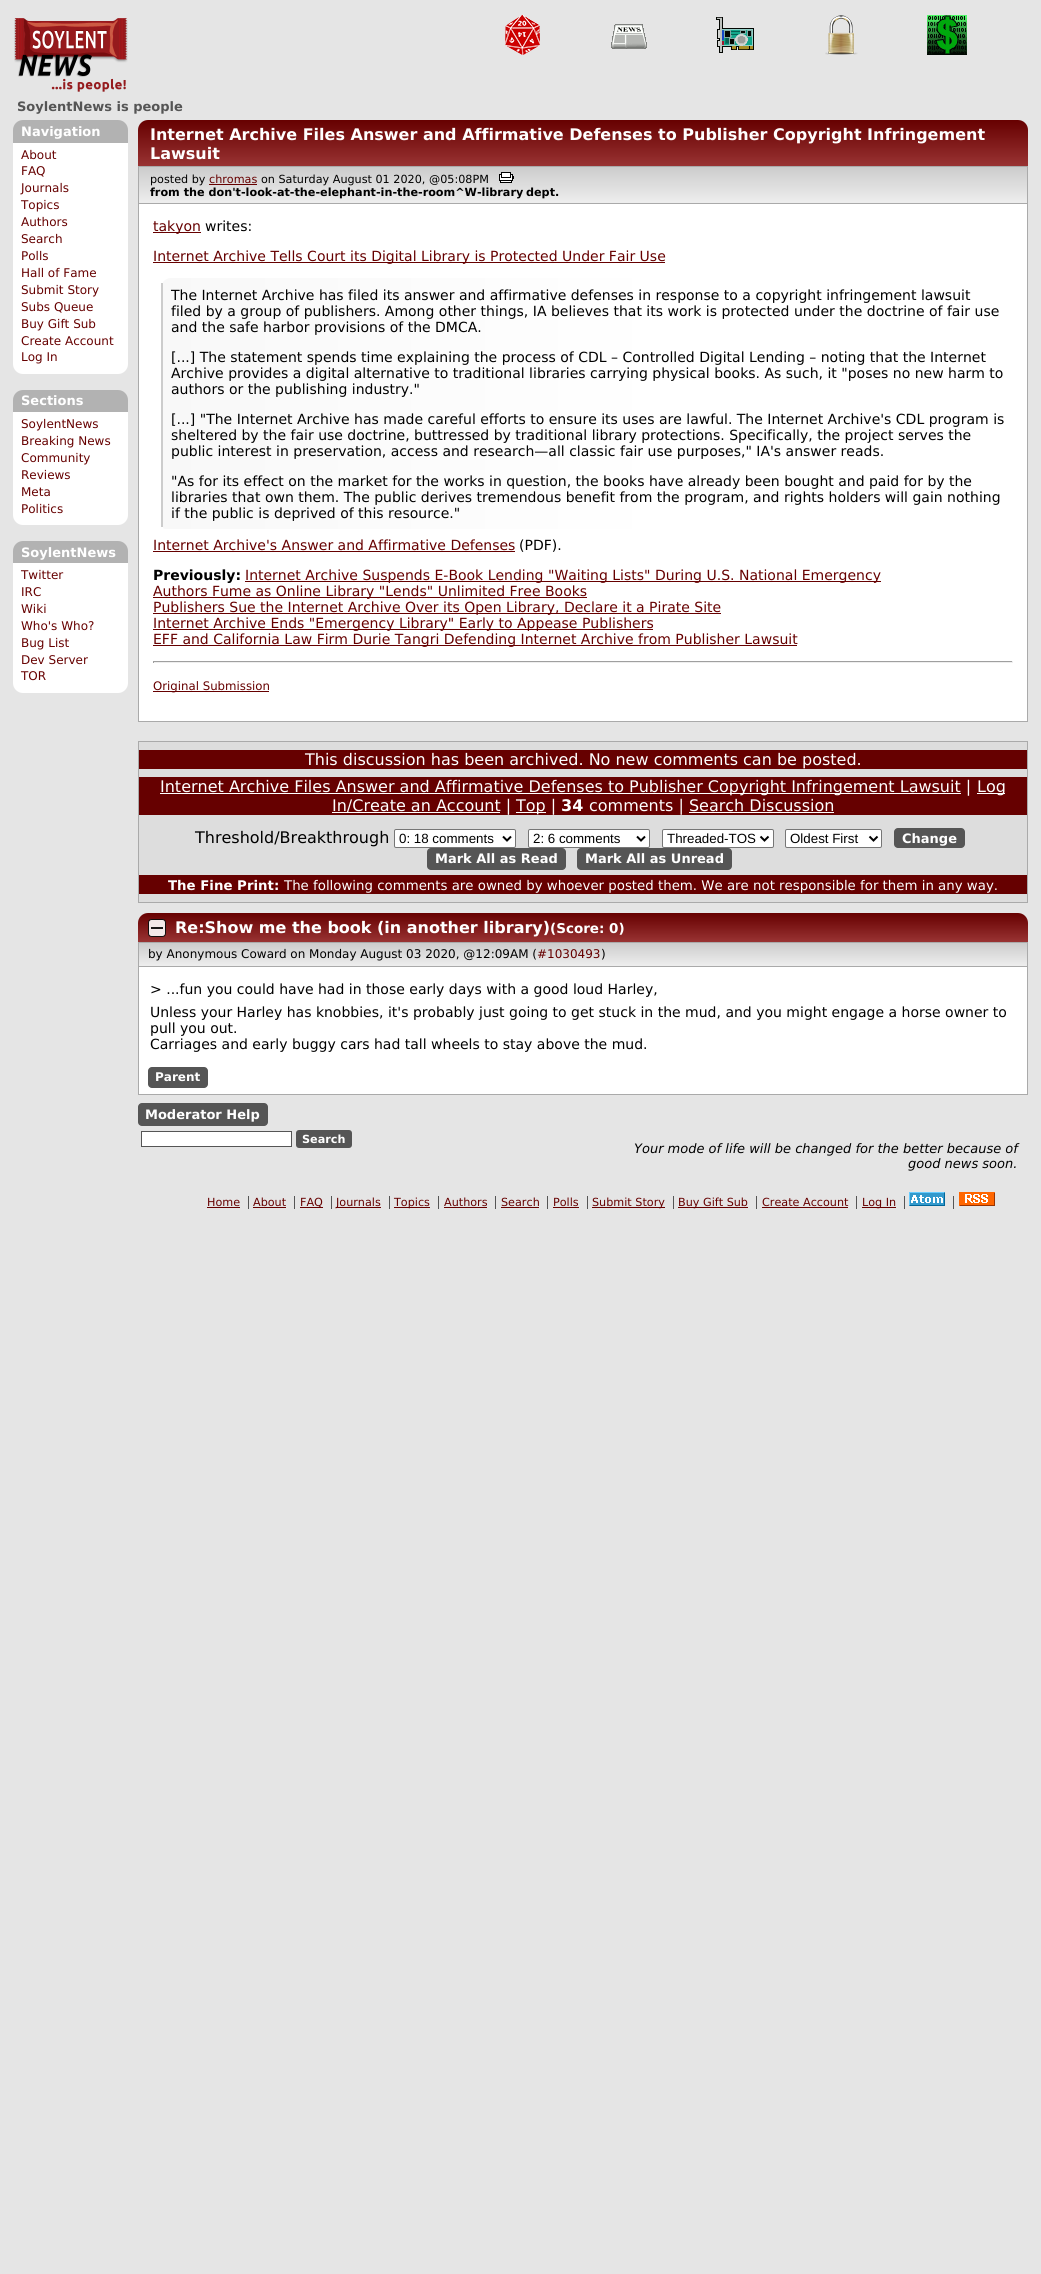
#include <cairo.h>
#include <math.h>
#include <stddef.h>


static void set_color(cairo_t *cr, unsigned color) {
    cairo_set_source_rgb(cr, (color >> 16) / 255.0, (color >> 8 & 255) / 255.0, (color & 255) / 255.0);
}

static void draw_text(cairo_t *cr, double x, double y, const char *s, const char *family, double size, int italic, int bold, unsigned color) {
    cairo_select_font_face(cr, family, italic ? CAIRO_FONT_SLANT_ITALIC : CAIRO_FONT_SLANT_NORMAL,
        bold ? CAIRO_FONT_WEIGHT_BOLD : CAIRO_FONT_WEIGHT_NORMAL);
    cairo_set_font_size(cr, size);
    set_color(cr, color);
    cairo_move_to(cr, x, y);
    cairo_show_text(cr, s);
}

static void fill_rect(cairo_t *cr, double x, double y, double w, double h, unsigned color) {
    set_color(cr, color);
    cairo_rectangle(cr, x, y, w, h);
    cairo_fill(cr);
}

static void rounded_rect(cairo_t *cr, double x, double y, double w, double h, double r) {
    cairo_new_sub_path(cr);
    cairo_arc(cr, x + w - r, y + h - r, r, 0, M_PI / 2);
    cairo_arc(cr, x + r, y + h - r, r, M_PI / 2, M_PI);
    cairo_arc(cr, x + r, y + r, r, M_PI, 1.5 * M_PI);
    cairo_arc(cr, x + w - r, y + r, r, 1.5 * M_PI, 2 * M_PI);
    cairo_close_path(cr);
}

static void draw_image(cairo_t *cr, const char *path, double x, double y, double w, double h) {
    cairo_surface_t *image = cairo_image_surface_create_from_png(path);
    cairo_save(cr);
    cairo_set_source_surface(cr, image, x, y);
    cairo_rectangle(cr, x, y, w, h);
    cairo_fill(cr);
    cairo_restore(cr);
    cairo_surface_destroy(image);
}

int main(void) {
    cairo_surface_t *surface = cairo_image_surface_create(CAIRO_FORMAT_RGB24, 1041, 2274);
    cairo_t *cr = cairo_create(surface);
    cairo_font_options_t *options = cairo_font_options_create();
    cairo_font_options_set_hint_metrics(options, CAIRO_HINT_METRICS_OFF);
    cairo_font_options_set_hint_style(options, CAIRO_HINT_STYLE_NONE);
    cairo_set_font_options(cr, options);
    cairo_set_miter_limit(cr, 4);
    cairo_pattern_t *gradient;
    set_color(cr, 0xE5E5E5);
    cairo_paint(cr);
    draw_image(cr, "assets/img1.png", 14, 18, 114, 74);
    draw_image(cr, "assets/img2.png", 505, 15, 35, 40);
    draw_image(cr, "assets/img3.png", 611, 24, 36, 25);
    draw_image(cr, "assets/img4.png", 716, 17, 38, 36);
    draw_image(cr, "assets/img5.png", 825, 15, 33, 40);
    draw_image(cr, "assets/img6.png", 927, 15, 40, 40);
    draw_text(cr, 17, 111, "SoylentNews is people", "DejaVu Sans", 13, 0, 1, 0x555555);
    set_color(cr, 0xB2B2B2);
    cairo_new_path(cr);
    cairo_move_to(cr, 23, 120);
    cairo_line_to(cr, 118, 120);
    cairo_curve_to(cr, 123.5, 120, 128, 124.5, 128, 130);
    cairo_line_to(cr, 128, 143);
    cairo_line_to(cr, 13, 143);
    cairo_line_to(cr, 13, 130);
    cairo_curve_to(cr, 13, 124.5, 17.5, 120, 23, 120);
    cairo_close_path(cr);
    cairo_fill(cr);
    draw_text(cr, 21, 136, "Navigation", "DejaVu Sans", 13, 0, 1, 0xFFFFFF);
    cairo_new_path(cr);
    cairo_move_to(cr, 13, 143);
    cairo_line_to(cr, 128, 143);
    cairo_line_to(cr, 128, 364);
    cairo_curve_to(cr, 128, 369.5, 123.5, 374, 118, 374);
    cairo_line_to(cr, 23, 374);
    cairo_curve_to(cr, 17.5, 374, 13, 369.5, 13, 364);
    cairo_close_path(cr);
    cairo_fill(cr);
    draw_text(cr, 21, 159, "About", "DejaVu Sans", 12, 0, 0, 0x660000);
    draw_text(cr, 21, 175, "FAQ", "DejaVu Sans", 12, 0, 0, 0x660000);
    draw_text(cr, 21, 192, "Journals", "DejaVu Sans", 12, 0, 0, 0x660000);
    draw_text(cr, 21, 209, "Topics", "DejaVu Sans", 12, 0, 0, 0x660000);
    draw_text(cr, 21, 226, "Authors", "DejaVu Sans", 12, 0, 0, 0x660000);
    draw_text(cr, 21, 243, "Search", "DejaVu Sans", 12, 0, 0, 0x660000);
    draw_text(cr, 21, 260, "Polls", "DejaVu Sans", 12, 0, 0, 0x660000);
    draw_text(cr, 21, 277, "Hall of Fame", "DejaVu Sans", 12, 0, 0, 0x660000);
    draw_text(cr, 21, 294, "Submit Story", "DejaVu Sans", 12, 0, 0, 0x660000);
    draw_text(cr, 21, 311, "Subs Queue", "DejaVu Sans", 12, 0, 0, 0x660000);
    draw_text(cr, 21, 328, "Buy Gift Sub", "DejaVu Sans", 12, 0, 0, 0x660000);
    draw_text(cr, 21, 345, "Create Account", "DejaVu Sans", 12, 0, 0, 0x660000);
    draw_text(cr, 21, 361, "Log In", "DejaVu Sans", 12, 0, 0, 0x660000);
    set_color(cr, 0xB2B2B2);
    cairo_new_path(cr);
    cairo_move_to(cr, 23, 390);
    cairo_line_to(cr, 118, 390);
    cairo_curve_to(cr, 123.5, 390, 128, 394.5, 128, 400);
    cairo_line_to(cr, 128, 412);
    cairo_line_to(cr, 13, 412);
    cairo_line_to(cr, 13, 400);
    cairo_curve_to(cr, 13, 394.5, 17.5, 390, 23, 390);
    cairo_close_path(cr);
    cairo_fill(cr);
    draw_text(cr, 21, 405, "Sections", "DejaVu Sans", 13, 0, 1, 0xFFFFFF);
    cairo_new_path(cr);
    cairo_move_to(cr, 13, 412);
    cairo_line_to(cr, 128, 412);
    cairo_line_to(cr, 128, 515);
    cairo_curve_to(cr, 128, 520.5, 123.5, 525, 118, 525);
    cairo_line_to(cr, 23, 525);
    cairo_curve_to(cr, 17.5, 525, 13, 520.5, 13, 515);
    cairo_close_path(cr);
    cairo_fill(cr);
    draw_text(cr, 21, 428, "SoylentNews", "DejaVu Sans", 12, 0, 0, 0x660000);
    draw_text(cr, 21, 445, "Breaking News", "DejaVu Sans", 12, 0, 0, 0x660000);
    draw_text(cr, 21, 462, "Community", "DejaVu Sans", 12, 0, 0, 0x660000);
    draw_text(cr, 21, 479, "Reviews", "DejaVu Sans", 12, 0, 0, 0x660000);
    draw_text(cr, 21, 496, "Meta", "DejaVu Sans", 12, 0, 0, 0x660000);
    draw_text(cr, 21, 513, "Politics", "DejaVu Sans", 12, 0, 0, 0x660000);
    set_color(cr, 0xB2B2B2);
    cairo_new_path(cr);
    cairo_move_to(cr, 23, 541);
    cairo_line_to(cr, 118, 541);
    cairo_curve_to(cr, 123.5, 541, 128, 545.5, 128, 551);
    cairo_line_to(cr, 128, 563);
    cairo_line_to(cr, 13, 563);
    cairo_line_to(cr, 13, 551);
    cairo_curve_to(cr, 13, 545.5, 17.5, 541, 23, 541);
    cairo_close_path(cr);
    cairo_fill(cr);
    draw_text(cr, 21, 557, "SoylentNews", "DejaVu Sans", 13, 0, 1, 0xFFFFFF);
    cairo_new_path(cr);
    cairo_move_to(cr, 13, 563);
    cairo_line_to(cr, 128, 563);
    cairo_line_to(cr, 128, 683);
    cairo_curve_to(cr, 128, 688.5, 123.5, 693, 118, 693);
    cairo_line_to(cr, 23, 693);
    cairo_curve_to(cr, 17.5, 693, 13, 688.5, 13, 683);
    cairo_close_path(cr);
    cairo_fill(cr);
    draw_text(cr, 21, 579, "Twitter", "DejaVu Sans", 12, 0, 0, 0x660000);
    draw_text(cr, 21, 596, "IRC", "DejaVu Sans", 12, 0, 0, 0x660000);
    draw_text(cr, 21, 613, "Wiki", "DejaVu Sans", 12, 0, 0, 0x660000);
    draw_text(cr, 21, 630, "Who's Who?", "DejaVu Sans", 12, 0, 0, 0x660000);
    draw_text(cr, 21, 647, "Bug List", "DejaVu Sans", 12, 0, 0, 0x660000);
    draw_text(cr, 21, 664, "Dev Server", "DejaVu Sans", 12, 0, 0, 0x660000);
    draw_text(cr, 21, 680, "TOR", "DejaVu Sans", 12, 0, 0, 0x660000);
    gradient = cairo_pattern_create_linear(583, 120, 583, 166);
    cairo_pattern_add_color_stop_rgba(gradient, 0, 0.4, 0, 0, 1);
    cairo_pattern_add_color_stop_rgba(gradient, 1, 0.6, 0.2, 0.2, 1);
    cairo_set_source(cr, gradient);
    cairo_pattern_destroy(gradient);
    cairo_new_path(cr);
    cairo_move_to(cr, 148, 120);
    cairo_line_to(cr, 1018, 120);
    cairo_curve_to(cr, 1023.5, 120, 1028, 124.5, 1028, 130);
    cairo_line_to(cr, 1028, 166);
    cairo_line_to(cr, 138, 166);
    cairo_line_to(cr, 138, 130);
    cairo_curve_to(cr, 138, 124.5, 142.5, 120, 148, 120);
    cairo_close_path(cr);
    cairo_fill(cr);
    draw_text(cr, 150, 140, "Internet Archive Files Answer and Affirmative Defenses to Publisher Copyright Infringement", "DejaVu Sans", 16, 0, 1, 0xFFFFFF);
    draw_text(cr, 150, 159, "Lawsuit", "DejaVu Sans", 16, 0, 1, 0xFFFFFF);
    gradient = cairo_pattern_create_linear(583, 167, 583, 203);
    cairo_pattern_add_color_stop_rgba(gradient, 0, 0.8, 0.8, 0.8, 1);
    cairo_pattern_add_color_stop_rgba(gradient, 1, 0.933, 0.933, 0.933, 1);
    cairo_set_source(cr, gradient);
    cairo_pattern_destroy(gradient);
    cairo_rectangle(cr, 139, 167, 888, 36);
    cairo_fill(cr);
    cairo_rectangle(cr, 138.5, 166.5, 889, 37);
    set_color(cr, 0xAAAAAA);
    cairo_set_line_width(cr, 1);
    cairo_stroke(cr);
    draw_text(cr, 150, 183, "posted by", "DejaVu Sans", 11.2, 0, 0, 0x000000);
    draw_text(cr, 209, 183, "chromas", "DejaVu Sans", 11.2, 0, 0, 0x660000);
    fill_rect(cr, 209, 184, 48, 1, 0x660000);
    draw_text(cr, 261, 183, "on Saturday August 01 2020, @05:08PM", "DejaVu Sans", 11.2, 0, 0, 0x000000);
    draw_image(cr, "assets/img7.png", 499, 172, 15, 11);
    draw_text(cr, 150, 196, "from the don't-look-at-the-elephant-in-the-room^W-library", "DejaVu Sans", 11.2, 0, 1, 0x000000);
    draw_text(cr, 526, 196, "dept.", "DejaVu Sans", 11.2, 0, 1, 0x000000);
    fill_rect(cr, 139, 204, 888, 517, 0xFFFFFF);
    fill_rect(cr, 1027, 204, 1, 518, 0xAAAAAA);
    fill_rect(cr, 138, 721, 890, 1, 0xAAAAAA);
    fill_rect(cr, 138, 204, 1, 518, 0xAAAAAA);
    fill_rect(cr, 153, 232, 48, 1, 0x660000);
    draw_text(cr, 153, 231, "takyon", "DejaVu Sans", 14, 0, 0, 0x660000);
    draw_text(cr, 205, 231, "writes:", "DejaVu Sans", 14, 0, 0, 0x000000);
    fill_rect(cr, 153, 262, 512, 1, 0x660000);
    draw_text(cr, 153, 261, "Internet Archive Tells Court its Digital Library is Protected Under Fair Use", "DejaVu Sans", 14, 0, 0, 0x660000);
    cairo_save(cr);
    cairo_new_path(cr);
    cairo_move_to(cr, 171, 278);
    cairo_line_to(cr, 1005, 278);
    cairo_line_to(cr, 1005, 529);
    cairo_line_to(cr, 166, 529);
    cairo_curve_to(cr, 163, 529, 161, 527, 161, 524);
    cairo_line_to(cr, 161, 288);
    cairo_curve_to(cr, 161, 282.5, 165.5, 278, 171, 278);
    cairo_close_path(cr);
    cairo_clip(cr);
    gradient = cairo_pattern_create_linear(163, 404, 1005, 404);
    cairo_pattern_add_color_stop_rgba(gradient, 0, 0.973, 0.973, 0.973, 1);
    cairo_pattern_add_color_stop_rgba(gradient, 0.6, 1, 1, 1, 1);
    cairo_set_source(cr, gradient);
    cairo_pattern_destroy(gradient);
    cairo_rectangle(cr, 163, 278, 842, 251);
    cairo_fill(cr);
    cairo_restore(cr);
    fill_rect(cr, 161, 283, 2, 244, 0xCCCCCC);
    draw_text(cr, 171, 300, "The Internet Archive has filed its answer and affirmative defenses in response to a copyright infringement lawsuit", "DejaVu Sans", 14, 0, 0, 0x000000);
    draw_text(cr, 171, 316, "filed by a group of publishers. Among other things, IA believes that its work is protected under the doctrine of fair use", "DejaVu Sans", 14, 0, 0, 0x000000);
    draw_text(cr, 171, 332, "and the safe harbor provisions of the DMCA.", "DejaVu Sans", 14, 0, 0, 0x000000);
    draw_text(cr, 171, 362, "[...] The statement spends time explaining the process of CDL – Controlled Digital Lending – noting that the Internet", "DejaVu Sans", 14, 0, 0, 0x000000);
    draw_text(cr, 171, 378, "Archive provides a digital alternative to traditional libraries carrying physical books. As such, it \"poses no new harm to", "DejaVu Sans", 14, 0, 0, 0x000000);
    draw_text(cr, 171, 394, "authors or the publishing industry.\"", "DejaVu Sans", 14, 0, 0, 0x000000);
    draw_text(cr, 171, 424, "[...] \"The Internet Archive has made careful efforts to ensure its uses are lawful. The Internet Archive's CDL program is", "DejaVu Sans", 14, 0, 0, 0x000000);
    draw_text(cr, 171, 440, "sheltered by the fair use doctrine, buttressed by traditional library protections. Specifically, the project serves the", "DejaVu Sans", 14, 0, 0, 0x000000);
    draw_text(cr, 171, 456, "public interest in preservation, access and research—all classic fair use purposes,\" IA's answer reads.", "DejaVu Sans", 14, 0, 0, 0x000000);
    draw_text(cr, 171, 486, "\"As for its effect on the market for the works in question, the books have already been bought and paid for by the", "DejaVu Sans", 14, 0, 0, 0x000000);
    draw_text(cr, 171, 502, "libraries that own them. The public derives tremendous benefit from the program, and rights holders will gain nothing", "DejaVu Sans", 14, 0, 0, 0x000000);
    draw_text(cr, 171, 518, "if the public is deprived of this resource.\"", "DejaVu Sans", 14, 0, 0, 0x000000);
    draw_text(cr, 153, 550, "Internet Archive's Answer and Affirmative Defenses", "DejaVu Sans", 14, 0, 0, 0x660000);
    fill_rect(cr, 153, 551, 362, 1, 0x660000);
    draw_text(cr, 519, 550, "(PDF).", "DejaVu Sans", 14, 0, 0, 0x000000);
    draw_text(cr, 153, 580, "Previously:", "DejaVu Sans", 14, 0, 1, 0x000000);
    fill_rect(cr, 245, 581, 636, 1, 0x660000);
    draw_text(cr, 245, 580, "Internet Archive Suspends E-Book Lending \"Waiting Lists\" During U.S. National Emergency", "DejaVu Sans", 14, 0, 0, 0x660000);
    fill_rect(cr, 153, 597, 434, 1, 0x660000);
    draw_text(cr, 153, 596, "Authors Fume as Online Library \"Lends\" Unlimited Free Books", "DejaVu Sans", 14, 0, 0, 0x660000);
    fill_rect(cr, 153, 613, 568, 1, 0x660000);
    draw_text(cr, 153, 612, "Publishers Sue the Internet Archive Over its Open Library, Declare it a Pirate Site", "DejaVu Sans", 14, 0, 0, 0x660000);
    fill_rect(cr, 153, 629, 500, 1, 0x660000);
    draw_text(cr, 153, 628, "Internet Archive Ends \"Emergency Library\" Early to Appease Publishers", "DejaVu Sans", 14, 0, 0, 0x660000);
    fill_rect(cr, 153, 645, 644, 1, 0x660000);
    draw_text(cr, 153, 644, "EFF and California Law Firm Durie Tangri Defending Internet Archive from Publisher Lawsuit", "DejaVu Sans", 14, 0, 0, 0x660000);
    fill_rect(cr, 153, 661, 860, 1, 0x9F9F9F);
    fill_rect(cr, 1012, 661, 1, 2, 0xEEEEEE);
    fill_rect(cr, 153, 662, 860, 1, 0xEEEEEE);
    fill_rect(cr, 153, 661, 1, 2, 0x9F9F9F);
    fill_rect(cr, 153, 691, 116, 1, 0x660000);
    draw_text(cr, 153, 690, "Original Submission", "DejaVu Sans", 11.75, 0, 0, 0x660000);
    set_color(cr, 0xDDDDDD);
    cairo_rectangle(cr, 138.5, 741.5, 889, 161);
    cairo_fill_preserve(cr);
    set_color(cr, 0xAAAAAA);
    cairo_stroke(cr);
    fill_rect(cr, 139, 750, 888, 19, 0x660000);
    draw_text(cr, 305, 765, "This discussion has been archived. No new comments can be posted.", "DejaVu Sans", 16, 0, 0, 0xFFFFFF);
    fill_rect(cr, 139, 777, 888, 38, 0x660000);
    fill_rect(cr, 160, 793, 801, 1, 0xFFFFFF);
    draw_text(cr, 160, 792, "Internet Archive Files Answer and Affirmative Defenses to Publisher Copyright Infringement Lawsuit |", "DejaVu Sans", 16, 0, 0, 0xFFFFFF);
    fill_rect(cr, 977, 793, 28, 1, 0xFFFFFF);
    draw_text(cr, 977, 792, "Log", "DejaVu Sans", 16, 0, 0, 0xFFFFFF);
    fill_rect(cr, 332, 812, 168, 1, 0xFFFFFF);
    draw_text(cr, 332, 811, "In/Create an Account |", "DejaVu Sans", 16, 0, 0, 0xFFFFFF);
    fill_rect(cr, 516, 812, 30, 1, 0xFFFFFF);
    draw_text(cr, 516, 811, "Top |", "DejaVu Sans", 16, 0, 0, 0xFFFFFF);
    draw_text(cr, 561, 811, "34", "DejaVu Sans", 16, 0, 1, 0xFFFFFF);
    draw_text(cr, 589, 811, "comments | Search Discussion", "DejaVu Sans", 16, 0, 0, 0xFFFFFF);
    fill_rect(cr, 689, 812, 145, 1, 0xFFFFFF);
    draw_text(cr, 195, 843, "Threshold/Breakthrough", "DejaVu Sans", 16, 0, 0, 0x000000);
    set_color(cr, 0xFFFFFF);
    rounded_rect(cr, 394.5, 829.5, 121, 18, 1.5);
    cairo_fill_preserve(cr);
    set_color(cr, 0x767676);
    cairo_stroke(cr);
    cairo_new_path(cr);
    cairo_move_to(cr, 503, 836.5);
    cairo_line_to(cr, 507, 840.5);
    cairo_line_to(cr, 511, 836.5);
    set_color(cr, 0x000000);
    cairo_set_line_width(cr, 2);
    cairo_stroke(cr);
    draw_text(cr, 399, 843, "0: 18 comments", "Liberation Sans", 13.33, 0, 0, 0x000000);
    set_color(cr, 0xFFFFFF);
    rounded_rect(cr, 528.5, 829.5, 121, 18, 1.5);
    cairo_fill_preserve(cr);
    set_color(cr, 0x767676);
    cairo_set_line_width(cr, 1);
    cairo_stroke(cr);
    cairo_new_path(cr);
    cairo_move_to(cr, 637, 836.5);
    cairo_line_to(cr, 641, 840.5);
    cairo_line_to(cr, 645, 836.5);
    set_color(cr, 0x000000);
    cairo_set_line_width(cr, 2);
    cairo_stroke(cr);
    draw_text(cr, 533, 843, "2: 6 comments", "Liberation Sans", 13.33, 0, 0, 0x000000);
    set_color(cr, 0xFFFFFF);
    rounded_rect(cr, 662.5, 829.5, 111, 18, 1.5);
    cairo_fill_preserve(cr);
    set_color(cr, 0x767676);
    cairo_set_line_width(cr, 1);
    cairo_stroke(cr);
    cairo_new_path(cr);
    cairo_move_to(cr, 760.5, 836.5);
    cairo_line_to(cr, 764.5, 840.5);
    cairo_line_to(cr, 768.5, 836.5);
    set_color(cr, 0x000000);
    cairo_set_line_width(cr, 2);
    cairo_stroke(cr);
    draw_text(cr, 667, 843, "Threaded-TOS", "Liberation Sans", 13.33, 0, 0, 0x000000);
    set_color(cr, 0xFFFFFF);
    rounded_rect(cr, 785.5, 829.5, 96, 18, 1.5);
    cairo_fill_preserve(cr);
    set_color(cr, 0x767676);
    cairo_set_line_width(cr, 1);
    cairo_stroke(cr);
    cairo_new_path(cr);
    cairo_move_to(cr, 869.5, 836.5);
    cairo_line_to(cr, 873.5, 840.5);
    cairo_line_to(cr, 877.5, 836.5);
    set_color(cr, 0x000000);
    cairo_set_line_width(cr, 2);
    cairo_stroke(cr);
    draw_text(cr, 790, 843, "Oldest First", "Liberation Sans", 13.33, 0, 0, 0x000000);
    set_color(cr, 0x555555);
    rounded_rect(cr, 894, 828, 71, 20, 4);
    cairo_fill(cr);
    draw_text(cr, 902, 843, "Change", "DejaVu Sans", 13, 0, 1, 0xFFFFFF);
    set_color(cr, 0x555555);
    rounded_rect(cr, 427, 848, 139, 22, 4);
    cairo_fill(cr);
    draw_text(cr, 435, 863, "Mark All as Read", "DejaVu Sans", 13, 0, 1, 0xFFFFFF);
    set_color(cr, 0x555555);
    rounded_rect(cr, 577, 848, 155, 22, 4);
    cairo_fill(cr);
    draw_text(cr, 585, 863, "Mark All as Unread", "DejaVu Sans", 13, 0, 1, 0xFFFFFF);
    fill_rect(cr, 139, 875, 888, 19, 0x660000);
    draw_text(cr, 168, 890, "The Fine Print:", "DejaVu Sans", 13.33, 0, 1, 0xFFFFFF);
    draw_text(cr, 284, 890, "The following comments are owned by whoever posted them. We are not responsible for them in any way.", "DejaVu Sans", 13.33, 0, 0, 0xFFFFFF);
    gradient = cairo_pattern_create_linear(583, 913, 583, 942);
    cairo_pattern_add_color_stop_rgba(gradient, 0, 0.4, 0, 0, 1);
    cairo_pattern_add_color_stop_rgba(gradient, 1, 0.6, 0.2, 0.2, 1);
    cairo_set_source(cr, gradient);
    cairo_pattern_destroy(gradient);
    cairo_new_path(cr);
    cairo_move_to(cr, 148, 913);
    cairo_line_to(cr, 1018, 913);
    cairo_curve_to(cr, 1023.5, 913, 1028, 917.5, 1028, 923);
    cairo_line_to(cr, 1028, 942);
    cairo_line_to(cr, 138, 942);
    cairo_line_to(cr, 138, 923);
    cairo_curve_to(cr, 138, 917.5, 142.5, 913, 148, 913);
    cairo_close_path(cr);
    cairo_fill(cr);
    draw_image(cr, "assets/img8.png", 148, 919, 18, 18);
    draw_text(cr, 175, 933, "Re:Show me the book (in another library)", "DejaVu Sans", 16, 0, 1, 0xFFFFFF);
    draw_text(cr, 550, 933, "(Score: 0)", "DejaVu Sans", 13.5, 0, 1, 0xFFFFFF);
    gradient = cairo_pattern_create_linear(583, 943, 583, 966);
    cairo_pattern_add_color_stop_rgba(gradient, 0, 0.8, 0.8, 0.8, 1);
    cairo_pattern_add_color_stop_rgba(gradient, 1, 0.933, 0.933, 0.933, 1);
    cairo_set_source(cr, gradient);
    cairo_pattern_destroy(gradient);
    cairo_rectangle(cr, 139, 943, 888, 23);
    cairo_fill(cr);
    cairo_rectangle(cr, 138.5, 942.5, 889, 24);
    set_color(cr, 0xAAAAAA);
    cairo_set_line_width(cr, 1);
    cairo_stroke(cr);
    draw_text(cr, 148, 958, "by Anonymous Coward on Monday August 03 2020, @12:09AM (", "DejaVu Sans", 12, 0, 0, 0x000000);
    draw_text(cr, 537, 958, "#1030493", "DejaVu Sans", 12, 0, 0, 0x660000);
    draw_text(cr, 601, 958, ")", "DejaVu Sans", 12, 0, 0, 0x000000);
    fill_rect(cr, 139, 967, 888, 127, 0xFFFFFF);
    fill_rect(cr, 1027, 967, 1, 128, 0xAAAAAA);
    fill_rect(cr, 138, 967, 1, 94, 0xAAAAAA);
    draw_text(cr, 150, 994, "> ...fun you could have had in those early days with a good loud Harley,", "DejaVu Sans", 14, 0, 0, 0x000000);
    draw_text(cr, 150, 1017, "Unless your Harley has knobbies, it's probably just going to get stuck in the mud, and you might engage a horse owner to", "DejaVu Sans", 14, 0, 0, 0x000000);
    draw_text(cr, 150, 1033, "pull you out.", "DejaVu Sans", 14, 0, 0, 0x000000);
    draw_text(cr, 150, 1049, "Carriages and early buggy cars had tall wheels to stay above the mud.", "DejaVu Sans", 14, 0, 0, 0x000000);
    fill_rect(cr, 138, 1094, 890, 1, 0xAAAAAA);
    fill_rect(cr, 138, 1061, 1, 34, 0xAAAAAA);
    set_color(cr, 0x555555);
    rounded_rect(cr, 148, 1067, 60, 21, 4);
    cairo_fill(cr);
    draw_text(cr, 155, 1081, "Parent", "DejaVu Sans", 12, 0, 1, 0xFFFFFF);
    set_color(cr, 0x555555);
    rounded_rect(cr, 138, 1103, 130, 23, 4);
    cairo_fill(cr);
    draw_text(cr, 145, 1119, "Moderator Help", "DejaVu Sans", 13, 0, 1, 0xFFFFFF);
    cairo_rectangle(cr, 141.5, 1131.5, 150, 15);
    cairo_fill_preserve(cr);
    set_color(cr, 0x555555);
    cairo_stroke(cr);
    rounded_rect(cr, 296, 1130, 56, 18, 3);
    cairo_fill(cr);
    draw_text(cr, 302, 1143, "Search", "DejaVu Sans", 11.2, 0, 1, 0xFFFFFF);
    draw_text(cr, 634, 1153, "Your mode of life will be changed for the better because of", "DejaVu Sans", 13, 1, 0, 0x000000);
    draw_text(cr, 908, 1168, "good news soon.", "DejaVu Sans", 13, 1, 0, 0x000000);
    draw_text(cr, 207, 1206, "Home", "DejaVu Sans", 11.2, 0, 0, 0x660000);
    fill_rect(cr, 207, 1207, 33, 1, 0x660000);
    draw_text(cr, 253, 1206, "About", "DejaVu Sans", 11.2, 0, 0, 0x660000);
    fill_rect(cr, 248, 1196, 1, 13, 0x555555);
    fill_rect(cr, 253, 1207, 33, 1, 0x660000);
    fill_rect(cr, 300, 1207, 23, 1, 0x660000);
    draw_text(cr, 300, 1206, "FAQ", "DejaVu Sans", 11.2, 0, 0, 0x660000);
    fill_rect(cr, 294, 1196, 1, 13, 0x555555);
    fill_rect(cr, 336, 1207, 45, 1, 0x660000);
    draw_text(cr, 336, 1206, "Journals", "DejaVu Sans", 11.2, 0, 0, 0x660000);
    fill_rect(cr, 331, 1196, 1, 13, 0x555555);
    fill_rect(cr, 394, 1207, 36, 1, 0x660000);
    draw_text(cr, 394, 1206, "Topics", "DejaVu Sans", 11.2, 0, 0, 0x660000);
    fill_rect(cr, 389, 1196, 1, 13, 0x555555);
    draw_text(cr, 444, 1206, "Authors", "DejaVu Sans", 11.2, 0, 0, 0x660000);
    fill_rect(cr, 438, 1196, 1, 13, 0x555555);
    fill_rect(cr, 444, 1207, 43, 1, 0x660000);
    draw_text(cr, 501, 1206, "Search", "DejaVu Sans", 11.2, 0, 0, 0x660000);
    fill_rect(cr, 495, 1196, 1, 13, 0x555555);
    fill_rect(cr, 501, 1207, 38, 1, 0x660000);
    draw_text(cr, 553, 1206, "Polls", "DejaVu Sans", 11.2, 0, 0, 0x660000);
    fill_rect(cr, 547, 1196, 1, 13, 0x555555);
    fill_rect(cr, 553, 1207, 26, 1, 0x660000);
    fill_rect(cr, 592, 1207, 73, 1, 0x660000);
    draw_text(cr, 592, 1206, "Submit Story", "DejaVu Sans", 11.2, 0, 0, 0x660000);
    fill_rect(cr, 587, 1196, 1, 13, 0x555555);
    fill_rect(cr, 678, 1207, 70, 1, 0x660000);
    draw_text(cr, 678, 1206, "Buy Gift Sub", "DejaVu Sans", 11.2, 0, 0, 0x660000);
    fill_rect(cr, 673, 1196, 1, 13, 0x555555);
    draw_text(cr, 762, 1206, "Create Account", "DejaVu Sans", 11.2, 0, 0, 0x660000);
    fill_rect(cr, 756, 1196, 1, 13, 0x555555);
    fill_rect(cr, 762, 1207, 86, 1, 0x660000);
    fill_rect(cr, 862, 1207, 34, 1, 0x660000);
    draw_text(cr, 862, 1206, "Log In", "DejaVu Sans", 11.2, 0, 0, 0x660000);
    fill_rect(cr, 856, 1196, 1, 13, 0x555555);
    fill_rect(cr, 904, 1196, 1, 13, 0x555555);
    draw_image(cr, "assets/img9.png", 909, 1192, 36, 14);
    fill_rect(cr, 953, 1196, 1, 13, 0x555555);
    draw_image(cr, "assets/img10.png", 959, 1192, 36, 14);
    cairo_surface_write_to_png(surface, "output.png");
    cairo_font_options_destroy(options);
    cairo_destroy(cr);
    cairo_surface_destroy(surface);
    return 0;
}
